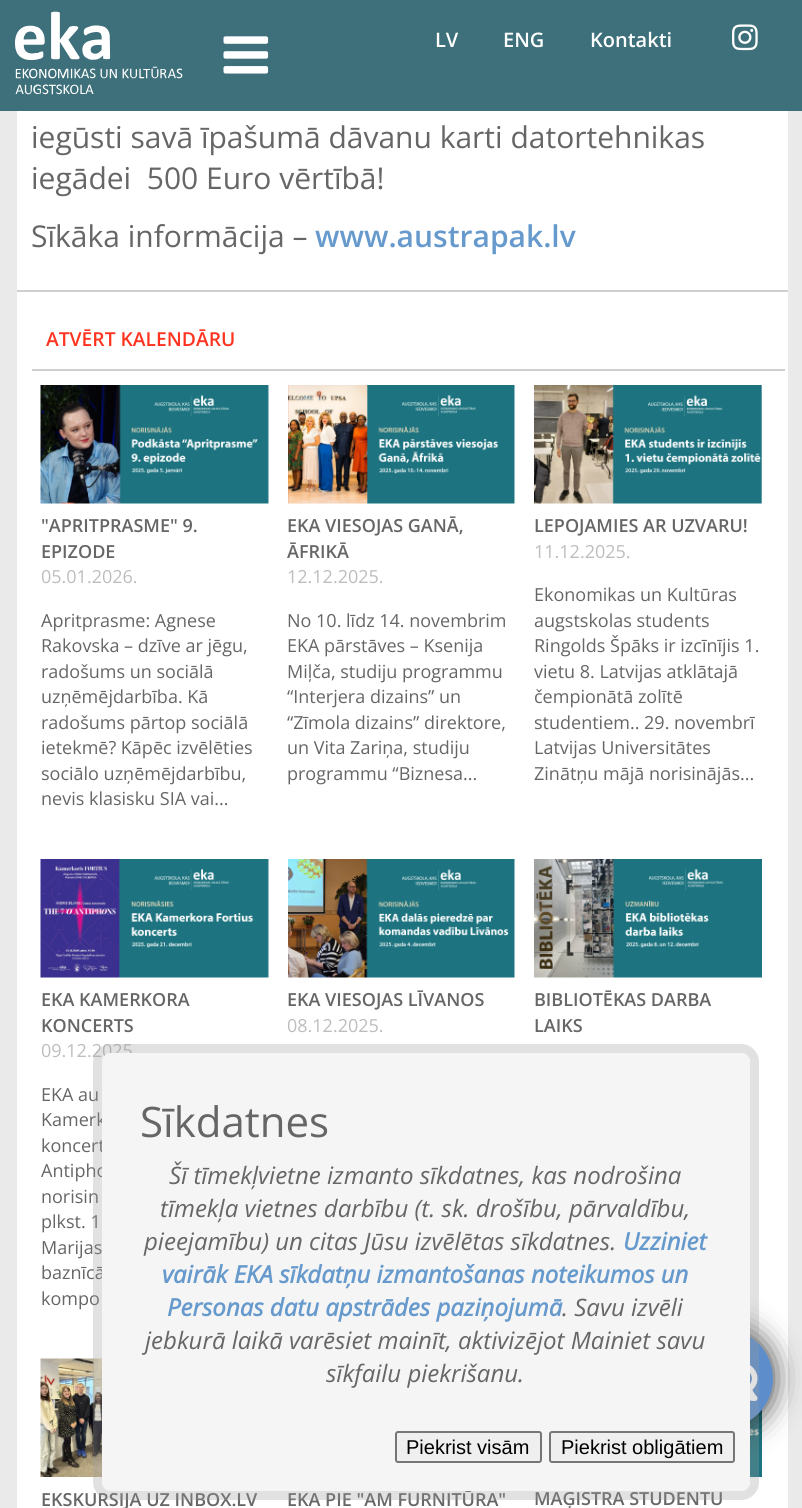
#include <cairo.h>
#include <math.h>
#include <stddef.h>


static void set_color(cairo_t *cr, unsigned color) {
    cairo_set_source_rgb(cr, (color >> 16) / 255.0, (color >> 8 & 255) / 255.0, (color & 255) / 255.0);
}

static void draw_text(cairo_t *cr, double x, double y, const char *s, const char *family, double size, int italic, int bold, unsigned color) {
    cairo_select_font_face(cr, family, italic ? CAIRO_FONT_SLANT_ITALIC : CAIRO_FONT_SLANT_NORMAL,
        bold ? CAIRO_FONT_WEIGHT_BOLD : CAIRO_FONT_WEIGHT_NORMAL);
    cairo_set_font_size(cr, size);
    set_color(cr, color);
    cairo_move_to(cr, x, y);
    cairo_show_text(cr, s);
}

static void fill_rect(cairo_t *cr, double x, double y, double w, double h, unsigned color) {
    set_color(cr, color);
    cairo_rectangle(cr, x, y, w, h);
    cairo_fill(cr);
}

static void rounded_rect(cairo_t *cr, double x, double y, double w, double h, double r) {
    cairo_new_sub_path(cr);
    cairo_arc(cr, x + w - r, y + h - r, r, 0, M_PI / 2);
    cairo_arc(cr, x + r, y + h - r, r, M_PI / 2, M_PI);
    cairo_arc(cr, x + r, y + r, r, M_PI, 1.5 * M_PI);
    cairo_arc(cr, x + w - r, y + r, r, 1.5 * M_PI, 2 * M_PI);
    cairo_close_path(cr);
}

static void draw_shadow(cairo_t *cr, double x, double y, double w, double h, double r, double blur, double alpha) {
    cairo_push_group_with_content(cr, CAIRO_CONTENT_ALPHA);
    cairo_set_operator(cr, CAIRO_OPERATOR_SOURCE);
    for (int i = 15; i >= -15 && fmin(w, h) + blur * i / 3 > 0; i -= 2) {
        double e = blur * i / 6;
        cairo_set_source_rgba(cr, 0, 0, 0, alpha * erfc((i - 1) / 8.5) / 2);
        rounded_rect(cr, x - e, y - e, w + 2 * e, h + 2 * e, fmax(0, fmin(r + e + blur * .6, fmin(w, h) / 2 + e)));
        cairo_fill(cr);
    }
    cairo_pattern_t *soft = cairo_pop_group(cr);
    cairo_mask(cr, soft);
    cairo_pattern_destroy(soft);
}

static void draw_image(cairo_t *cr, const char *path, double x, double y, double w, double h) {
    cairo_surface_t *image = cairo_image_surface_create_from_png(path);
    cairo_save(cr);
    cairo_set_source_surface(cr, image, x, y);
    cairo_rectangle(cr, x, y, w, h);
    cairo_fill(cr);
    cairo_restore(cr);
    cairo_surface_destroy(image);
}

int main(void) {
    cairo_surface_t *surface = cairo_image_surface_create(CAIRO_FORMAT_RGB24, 802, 1508);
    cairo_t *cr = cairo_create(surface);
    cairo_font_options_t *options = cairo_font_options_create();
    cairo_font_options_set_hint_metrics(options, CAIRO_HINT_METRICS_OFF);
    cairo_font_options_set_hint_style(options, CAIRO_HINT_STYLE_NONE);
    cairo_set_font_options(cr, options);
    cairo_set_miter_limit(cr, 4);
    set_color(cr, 0xEAEAEA);
    cairo_paint(cr);
    fill_rect(cr, 0, 0, 802, 111, 0x3D707A);
    draw_image(cr, "assets/img1.png", 15, 11, 168, 84);
    draw_image(cr, "assets/img2.png", 223, 36, 46, 38);
    draw_text(cr, 435, 47, "LV", "Open Sans SemiBold", 20, 0, 0, 0xFFFFFF);
    draw_text(cr, 503, 47, "ENG", "Open Sans SemiBold", 20, 0, 0, 0xFFFFFF);
    draw_text(cr, 590, 47, "Kontakti", "Open Sans SemiBold", 20, 0, 0, 0xFFFFFF);
    draw_image(cr, "assets/img3.png", 732, 24, 26, 27);
    fill_rect(cr, 17, 111, 771, 179, 0xFFFFFF);
    draw_text(cr, 31, 148, "iegūsti savā īpašumā dāvanu karti datortehnikas", "Open Sans", 30, 0, 0, 0x666666);
    draw_text(cr, 31, 189, "iegādei  500 Euro vērtībā!", "Open Sans", 30, 0, 0, 0x666666);
    draw_text(cr, 31, 247, "Sīkāka informācija –", "Open Sans", 30, 0, 0, 0x666666);
    draw_text(cr, 315, 247, "www.austrapak.lv", "Open Sans SemiBold", 30, 0, 0, 0x6699CC);
    fill_rect(cr, 17, 292, 771, 1216, 0xFFFFFF);
    fill_rect(cr, 17, 290, 771, 2, 0xCFCFCF);
    fill_rect(cr, 32, 369, 753, 2, 0xCFCFCF);
    draw_text(cr, 46, 346, "ATVĒRT KALENDĀRU", "Open Sans SemiBold", 19.25, 0, 0, 0xFF3420);
    draw_image(cr, "assets/img4.png", 40, 385, 229, 119);
    draw_text(cr, 41, 532, "\"APRITPRASME\" 9.", "Open Sans SemiBold", 18, 0, 0, 0x666666);
    draw_text(cr, 41, 558, "EPIZODE", "Open Sans SemiBold", 18, 0, 0, 0x666666);
    draw_text(cr, 41, 583, "05.01.2026.", "Open Sans", 18, 0, 0, 0xBDBDBD);
    draw_text(cr, 41, 627, "Apritprasme: Agnese", "Open Sans", 18, 0, 0, 0x666666);
    draw_text(cr, 41, 652, "Rakovska – dzīve ar jēgu,", "Open Sans", 18, 0, 0, 0x666666);
    draw_text(cr, 41, 678, "radošums un sociālā", "Open Sans", 18, 0, 0, 0x666666);
    draw_text(cr, 41, 703, "uzņēmējdarbība. Kā", "Open Sans", 18, 0, 0, 0x666666);
    draw_text(cr, 41, 729, "radošums pārtop sociālā", "Open Sans", 18, 0, 0, 0x666666);
    draw_text(cr, 41, 754, "ietekmē? Kāpēc izvēlēties", "Open Sans", 18, 0, 0, 0x666666);
    draw_text(cr, 41, 780, "sociālo uzņēmējdarbību,", "Open Sans", 18, 0, 0, 0x666666);
    draw_text(cr, 41, 805, "nevis klasisku SIA vai...", "Open Sans", 18, 0, 0, 0x666666);
    draw_image(cr, "assets/img5.png", 288, 385, 227, 119);
    draw_text(cr, 287, 532, "EKA VIESOJAS GANĀ,", "Open Sans SemiBold", 18, 0, 0, 0x666666);
    draw_text(cr, 287, 558, "ĀFRIKĀ", "Open Sans SemiBold", 18, 0, 0, 0x666666);
    draw_text(cr, 287, 583, "12.12.2025.", "Open Sans", 18, 0, 0, 0xBDBDBD);
    draw_text(cr, 287, 627, "No 10. līdz 14. novembrim", "Open Sans", 18, 0, 0, 0x666666);
    draw_text(cr, 287, 652, "EKA pārstāves – Ksenija", "Open Sans", 18, 0, 0, 0x666666);
    draw_text(cr, 287, 678, "Miļča, studiju programmu", "Open Sans", 18, 0, 0, 0x666666);
    draw_text(cr, 287, 703, "“Interjera dizains” un", "Open Sans", 18, 0, 0, 0x666666);
    draw_text(cr, 287, 729, "“Zīmola dizains” direktore,", "Open Sans", 18, 0, 0, 0x666666);
    draw_text(cr, 287, 754, "un Vita Zariņa, studiju", "Open Sans", 18, 0, 0, 0x666666);
    draw_text(cr, 287, 780, "programmu “Biznesa...", "Open Sans", 18, 0, 0, 0x666666);
    draw_image(cr, "assets/img6.png", 534, 385, 228, 119);
    draw_text(cr, 534, 532, "LEPOJAMIES AR UZVARU!", "Open Sans SemiBold", 18, 0, 0, 0x666666);
    draw_text(cr, 534, 558, "11.12.2025.", "Open Sans", 18, 0, 0, 0xBDBDBD);
    draw_text(cr, 534, 601, "Ekonomikas un Kultūras", "Open Sans", 18, 0, 0, 0x666666);
    draw_text(cr, 534, 627, "augstskolas students", "Open Sans", 18, 0, 0, 0x666666);
    draw_text(cr, 534, 652, "Ringolds Špāks ir izcīnījis 1.", "Open Sans", 18, 0, 0, 0x666666);
    draw_text(cr, 534, 678, "vietu 8. Latvijas atklātajā", "Open Sans", 18, 0, 0, 0x666666);
    draw_text(cr, 534, 703, "čempionātā zolītē", "Open Sans", 18, 0, 0, 0x666666);
    draw_text(cr, 534, 729, "studentiem.. 29. novembrī", "Open Sans", 18, 0, 0, 0x666666);
    draw_text(cr, 534, 754, "Latvijas Universitātes", "Open Sans", 18, 0, 0, 0x666666);
    draw_text(cr, 534, 780, "Zinātņu mājā norisinājās...", "Open Sans", 18, 0, 0, 0x666666);
    draw_image(cr, "assets/img7.png", 40, 859, 229, 119);
    draw_text(cr, 41, 1006, "EKA KAMERKORA", "Open Sans SemiBold", 18, 0, 0, 0x666666);
    draw_text(cr, 41, 1032, "KONCERTS", "Open Sans SemiBold", 18, 0, 0, 0x666666);
    draw_text(cr, 41, 1057, "09.12.2025", "Open Sans", 18, 0, 0, 0xBDBDBD);
    draw_text(cr, 41, 1101, "EKA au", "Open Sans", 18, 0, 0, 0x666666);
    draw_text(cr, 41, 1126, "Kamerk", "Open Sans", 18, 0, 0, 0x666666);
    draw_text(cr, 41, 1152, "koncert", "Open Sans", 18, 0, 0, 0x666666);
    draw_text(cr, 41, 1177, "Antipho", "Open Sans", 18, 0, 0, 0x666666);
    draw_text(cr, 41, 1203, "norisin", "Open Sans", 18, 0, 0, 0x666666);
    draw_text(cr, 41, 1228, "plkst. 1", "Open Sans", 18, 0, 0, 0x666666);
    draw_text(cr, 41, 1254, "Marijas", "Open Sans", 18, 0, 0, 0x666666);
    draw_text(cr, 41, 1279, "baznīcā", "Open Sans", 18, 0, 0, 0x666666);
    draw_text(cr, 41, 1305, "kompo", "Open Sans", 18, 0, 0, 0x666666);
    draw_image(cr, "assets/img8.png", 288, 859, 227, 119);
    draw_text(cr, 287, 1006, "EKA VIESOJAS LĪVANOS", "Open Sans SemiBold", 18, 0, 0, 0x666666);
    draw_text(cr, 287, 1032, "08.12.2025.", "Open Sans", 18, 0, 0, 0xBDBDBD);
    draw_image(cr, "assets/img9.png", 534, 859, 228, 119);
    draw_text(cr, 534, 1006, "BIBLIOTĒKAS DARBA", "Open Sans SemiBold", 18, 0, 0, 0x666666);
    draw_text(cr, 534, 1032, "LAIKS", "Open Sans SemiBold", 18, 0, 0, 0x666666);
    draw_image(cr, "assets/img10.png", 40, 1358, 62, 119);
    draw_text(cr, 41, 1506, "EKSKURSIJA UZ INBOX.LV", "Open Sans SemiBold", 18, 0, 0, 0x666666);
    draw_text(cr, 287, 1506, "EKA PIE \"AM FURNITŪRA\"", "Open Sans SemiBold", 18, 0, 0, 0x666666);
    draw_image(cr, "assets/img11.png", 750, 1409, 12, 68);
    draw_text(cr, 534, 1505, "MAĢISTRA STUDENTU", "Open Sans SemiBold", 18, 0, 0, 0x666666);
    set_color(cr, 0x000000);
    draw_shadow(cr, 674, 1329, 99, 99, 49.5, 15, 0.8);
    set_color(cr, 0x5D8ECB);
    cairo_arc(cr, 723.5, 1378.5, 49.5, 0, 2 * M_PI);
    cairo_fill(cr);
    draw_image(cr, "assets/img12.png", 750, 1365, 8, 36);
    rounded_rect(cr, 97.5, 1048.5, 657, 447, 13.5);
    cairo_set_source_rgba(cr, 0.6, 0.6, 0.6, 0.3);
    cairo_set_line_width(cr, 9);
    cairo_stroke(cr);
    set_color(cr, 0xF5F5F5);
    rounded_rect(cr, 102, 1053, 648, 438, 9);
    cairo_fill(cr);
    draw_text(cr, 140, 1137, "Sīkdatnes", "Open Sans", 42, 0, 0, 0x666666);
    draw_text(cr, 169, 1184, "Šī tīmekļvietne izmanto sīkdatnes, kas nodrošina", "Open Sans", 24, 1, 0, 0x666666);
    draw_text(cr, 160, 1217, "tīmekļa vietnes darbību (t. sk. drošību, pārvaldību,", "Open Sans", 24, 1, 0, 0x666666);
    draw_text(cr, 144, 1250, "pieejamību) un citas Jūsu izvēlētas sīkdatnes.", "Open Sans", 24, 1, 0, 0x666666);
    draw_text(cr, 623, 1250, "Uzziniet", "Open Sans", 24, 1, 1, 0x6699CC);
    draw_text(cr, 162, 1283, "vairāk EKA sīkdatņu izmantošanas noteikumos un", "Open Sans", 24, 1, 1, 0x6699CC);
    draw_text(cr, 167, 1316, "Personas datu apstrādes paziņojumā", "Open Sans", 24, 1, 1, 0x6699CC);
    draw_text(cr, 562, 1316, ". Savu izvēli", "Open Sans", 24, 1, 0, 0x666666);
    draw_text(cr, 145, 1349, "jebkurā laikā varēsiet mainīt, aktivizējot Mainiet savu", "Open Sans", 24, 1, 0, 0x666666);
    draw_text(cr, 326, 1382, "sīkfailu piekrišanu.", "Open Sans", 24, 1, 0, 0x666666);
    set_color(cr, 0xEFEFEF);
    rounded_rect(cr, 396, 1432, 145, 30, 2);
    cairo_fill_preserve(cr);
    set_color(cr, 0x767676);
    cairo_set_line_width(cr, 2);
    cairo_stroke(cr);
    draw_text(cr, 406, 1454, "Piekrist visām", "Liberation Sans", 20, 0, 0, 0x000000);
    set_color(cr, 0xEFEFEF);
    rounded_rect(cr, 550, 1432, 184, 30, 2);
    cairo_fill_preserve(cr);
    set_color(cr, 0x767676);
    cairo_stroke(cr);
    draw_text(cr, 561, 1454, "Piekrist obligātiem", "Liberation Sans", 20, 0, 0, 0x000000);
    cairo_surface_write_to_png(surface, "output.png");
    cairo_font_options_destroy(options);
    cairo_destroy(cr);
    cairo_surface_destroy(surface);
    return 0;
}
